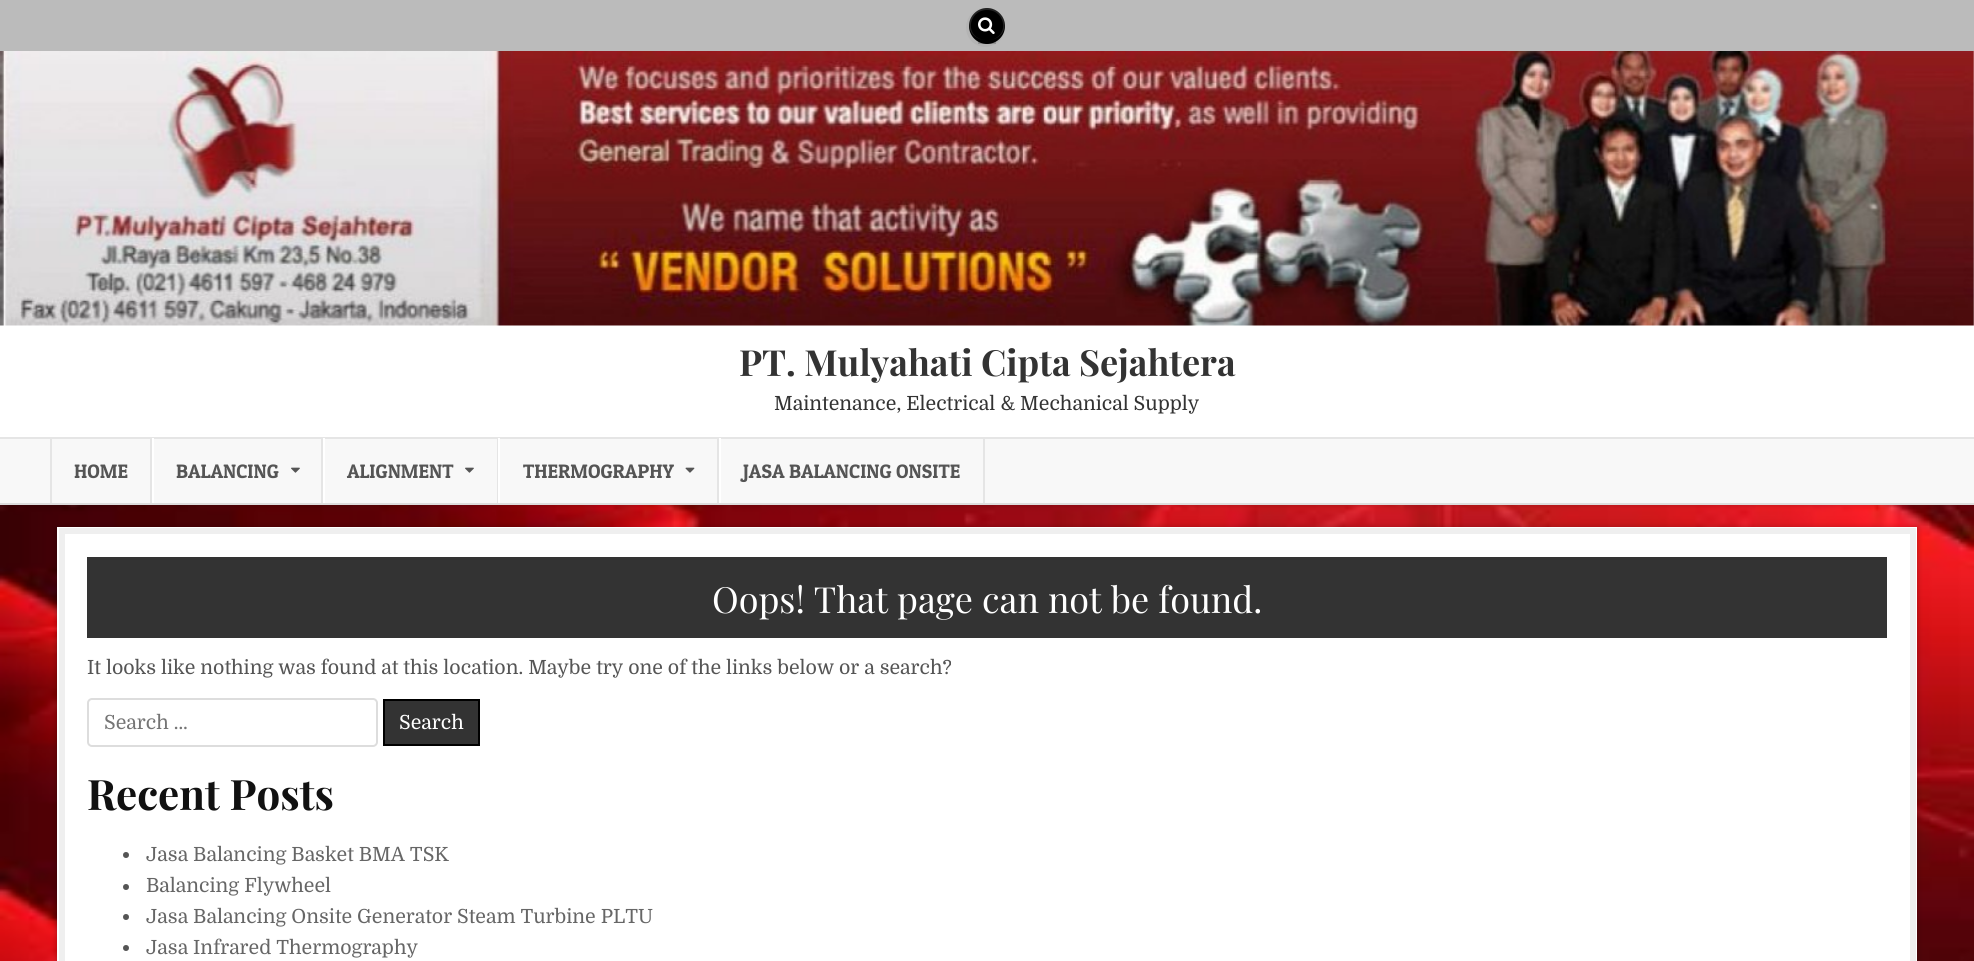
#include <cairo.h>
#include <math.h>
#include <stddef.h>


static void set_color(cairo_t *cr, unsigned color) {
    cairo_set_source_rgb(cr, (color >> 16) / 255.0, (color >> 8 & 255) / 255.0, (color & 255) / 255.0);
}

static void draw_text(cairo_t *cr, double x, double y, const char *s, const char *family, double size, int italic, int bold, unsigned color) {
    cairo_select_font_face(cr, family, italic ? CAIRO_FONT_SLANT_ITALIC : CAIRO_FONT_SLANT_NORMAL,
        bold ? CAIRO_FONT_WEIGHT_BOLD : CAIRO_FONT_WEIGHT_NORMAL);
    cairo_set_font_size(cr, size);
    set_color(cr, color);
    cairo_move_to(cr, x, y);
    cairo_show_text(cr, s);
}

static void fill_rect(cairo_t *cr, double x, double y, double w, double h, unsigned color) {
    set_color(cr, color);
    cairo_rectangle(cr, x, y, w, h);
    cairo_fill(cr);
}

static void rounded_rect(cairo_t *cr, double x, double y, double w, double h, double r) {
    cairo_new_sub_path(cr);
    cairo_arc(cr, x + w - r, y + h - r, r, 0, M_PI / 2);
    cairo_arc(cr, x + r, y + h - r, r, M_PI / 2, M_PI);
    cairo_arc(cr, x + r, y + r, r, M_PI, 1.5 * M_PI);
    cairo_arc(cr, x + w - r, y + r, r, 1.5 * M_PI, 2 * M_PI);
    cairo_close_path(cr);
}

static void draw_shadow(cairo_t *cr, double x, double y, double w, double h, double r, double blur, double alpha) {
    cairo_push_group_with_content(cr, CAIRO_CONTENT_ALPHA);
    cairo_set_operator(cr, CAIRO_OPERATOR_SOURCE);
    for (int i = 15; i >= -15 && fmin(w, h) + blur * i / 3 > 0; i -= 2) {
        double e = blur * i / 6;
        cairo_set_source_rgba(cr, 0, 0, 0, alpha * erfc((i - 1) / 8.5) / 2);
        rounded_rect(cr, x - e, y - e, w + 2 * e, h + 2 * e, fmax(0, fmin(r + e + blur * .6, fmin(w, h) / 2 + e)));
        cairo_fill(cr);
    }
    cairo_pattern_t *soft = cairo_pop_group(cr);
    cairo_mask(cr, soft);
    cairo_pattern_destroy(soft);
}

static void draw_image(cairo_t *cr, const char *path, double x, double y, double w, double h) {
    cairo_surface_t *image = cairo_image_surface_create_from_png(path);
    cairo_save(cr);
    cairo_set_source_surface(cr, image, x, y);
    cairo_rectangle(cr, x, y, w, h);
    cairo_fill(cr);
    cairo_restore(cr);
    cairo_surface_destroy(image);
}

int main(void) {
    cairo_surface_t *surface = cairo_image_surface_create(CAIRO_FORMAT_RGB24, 1974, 961);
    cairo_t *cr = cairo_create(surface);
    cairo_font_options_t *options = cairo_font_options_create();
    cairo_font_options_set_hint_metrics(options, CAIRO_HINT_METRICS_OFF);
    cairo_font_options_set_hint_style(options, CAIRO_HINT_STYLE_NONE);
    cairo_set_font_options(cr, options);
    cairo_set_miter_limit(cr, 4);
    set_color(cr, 0xFFFFFF);
    cairo_paint(cr);
    draw_image(cr, "assets/img1.png", 0, 505, 1974, 456);
    fill_rect(cr, 0, 0, 1974, 51, 0xBBBBBB);
    set_color(cr, 0xB4B4B4);
    cairo_new_path(cr);
    cairo_move_to(cr, 981, 8.5);
    cairo_curve_to(cr, 961, 13, 961, 42.5, 981.5, 46.5);
    cairo_curve_to(cr, 986.5, 47.5, 992, 46.5, 996.5, 43.5);
    cairo_curve_to(cr, 1002, 40, 1005.5, 33, 1005, 26.5);
    cairo_curve_to(cr, 1004.5, 36, 996.5, 43.5, 987, 43.5);
    cairo_curve_to(cr, 977, 43.5, 969, 35.5, 969, 25.5);
    cairo_curve_to(cr, 969, 17.5, 974, 11, 981, 8.5);
    cairo_close_path(cr);
    cairo_fill(cr);
    set_color(cr, 0x000000);
    cairo_arc(cr, 987, 26, 18, 0, 2 * M_PI);
    cairo_fill(cr);
    cairo_set_source_rgba(cr, 1, 1, 1, 0.14);
    cairo_set_fill_rule(cr, CAIRO_FILL_RULE_EVEN_ODD);
    cairo_new_path(cr);
    cairo_move_to(cr, 987, 8);
    cairo_curve_to(cr, 965, 8, 962, 40, 987, 40);
    cairo_curve_to(cr, 1012, 40, 1009, 8, 987, 8);
    cairo_close_path(cr);
    cairo_move_to(cr, 987, 10);
    cairo_curve_to(cr, 967, 10, 964, 40, 987, 40);
    cairo_curve_to(cr, 1010, 40, 1007, 10, 987, 10);
    cairo_close_path(cr);
    cairo_fill(cr);
    cairo_set_source_rgba(cr, 0, 0, 0, 0.18);
    cairo_rectangle(cr, 978, 41, 18, 3);
    cairo_fill(cr);
    draw_image(cr, "assets/img2.png", 978, 17, 17, 18);
    set_color(cr, 0x000000);
    draw_shadow(cr, 0, 438, 1974, 68, 0, 2, 0.15);
    fill_rect(cr, 0, 435, 1974, 2, 0xFFFFFF);
    draw_image(cr, "assets/img3.png", 0, 51, 1974, 275);
    draw_text(cr, 739, 376, "PT. Mulyahati Cipta Sejahtera", "Playfair Display", 36, 0, 1, 0x333333);
    draw_text(cr, 774, 410, "Maintenance, Electrical & Mechanical Supply", "Domine", 19.5, 0, 0, 0x333333);
    fill_rect(cr, 0, 439, 1974, 64, 0xF8F8F8);
    fill_rect(cr, 0, 437, 1974, 2, 0xE5E5E5);
    fill_rect(cr, 0, 503, 1974, 2, 0xDDDDDD);
    fill_rect(cr, 150, 438, 2, 65, 0xE5E5E5);
    fill_rect(cr, 50, 438, 2, 65, 0xE5E5E5);
    draw_text(cr, 74, 478, "HOME", "Patua One", 19.5, 0, 0, 0x555555);
    fill_rect(cr, 321, 438, 2, 65, 0xE5E5E5);
    fill_rect(cr, 152, 438, 2, 65, 0xFFFFFF);
    draw_text(cr, 176, 478, "BALANCING", "Patua One", 19.5, 0, 0, 0x555555);
    draw_image(cr, "assets/img4.png", 291, 467, 9, 6);
    fill_rect(cr, 497, 438, 1, 65, 0xE5E5E5);
    fill_rect(cr, 323, 438, 2, 65, 0xFFFFFF);
    draw_text(cr, 347, 478, "ALIGNMENT", "Patua One", 19.5, 0, 0, 0x555555);
    draw_image(cr, "assets/img4.png", 465, 467, 9, 6);
    fill_rect(cr, 717, 438, 2, 65, 0xE5E5E5);
    fill_rect(cr, 498, 438, 2, 65, 0xFFFFFF);
    draw_text(cr, 523, 478, "THERMOGRAPHY", "Patua One", 19.5, 0, 0, 0x555555);
    draw_image(cr, "assets/img5.png", 685, 467, 10, 6);
    fill_rect(cr, 983, 438, 2, 65, 0xE5E5E5);
    fill_rect(cr, 719, 438, 2, 65, 0xFFFFFF);
    draw_text(cr, 743, 478, "JASA BALANCING ONSITE", "Patua One", 19.5, 0, 0, 0x555555);
    set_color(cr, 0x000000);
    draw_shadow(cr, 57, 528, 1860, 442, 0, 3, 0.3);
    fill_rect(cr, 57, 527, 1860, 434, 0xFFFFFF);
    cairo_rectangle(cr, 62, 531, 1851, 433);
    set_color(cr, 0xEFEFEF);
    cairo_set_line_width(cr, 6);
    cairo_stroke(cr);
    fill_rect(cr, 87, 557, 1800, 81, 0x333333);
    draw_text(cr, 712, 613, "Oops! That page can not be found.", "Playfair Display", 36, 0, 0, 0xFFFFFF);
    draw_text(cr, 87, 674, "It looks like nothing was found at this location. Maybe try one of the links below or a search?", "Domine", 19.5, 0, 0, 0x555555);
    rounded_rect(cr, 88, 699, 289, 47, 4);
    set_color(cr, 0xDDDDDD);
    cairo_set_line_width(cr, 2);
    cairo_stroke(cr);
    draw_text(cr, 104, 729, "Search …", "Domine", 19.5, 0, 0, 0x757575);
    set_color(cr, 0x333333);
    cairo_rectangle(cr, 384, 700, 95, 45);
    cairo_fill_preserve(cr);
    set_color(cr, 0x000000);
    cairo_stroke(cr);
    draw_text(cr, 399, 729, "Search", "Domine", 19.5, 0, 0, 0xFFFFFF);
    draw_text(cr, 87, 810, "Recent Posts", "Playfair Display", 42, 0, 1, 0x111111);
    set_color(cr, 0x555555);
    cairo_new_path(cr);
    cairo_arc(cr, 126, 855, 3, 0, 2 * M_PI);
    cairo_fill(cr);
    draw_text(cr, 146, 861, "Jasa Balancing Basket BMA TSK", "Domine", 19.5, 0, 0, 0x666666);
    set_color(cr, 0x555555);
    cairo_new_path(cr);
    cairo_arc(cr, 126, 887, 3, 0, 2 * M_PI);
    cairo_fill(cr);
    draw_text(cr, 146, 892, "Balancing Flywheel", "Domine", 19.5, 0, 0, 0x666666);
    set_color(cr, 0x555555);
    cairo_new_path(cr);
    cairo_arc(cr, 126, 917, 3, 0, 2 * M_PI);
    cairo_fill(cr);
    draw_text(cr, 146, 923, "Jasa Balancing Onsite Generator Steam Turbine PLTU", "Domine", 19.5, 0, 0, 0x666666);
    set_color(cr, 0x555555);
    cairo_new_path(cr);
    cairo_arc(cr, 126, 948, 3, 0, 2 * M_PI);
    cairo_fill(cr);
    draw_text(cr, 146, 954, "Jasa Infrared Thermography", "Domine", 19.5, 0, 0, 0x666666);
    cairo_surface_write_to_png(surface, "output.png");
    cairo_font_options_destroy(options);
    cairo_destroy(cr);
    cairo_surface_destroy(surface);
    return 0;
}
